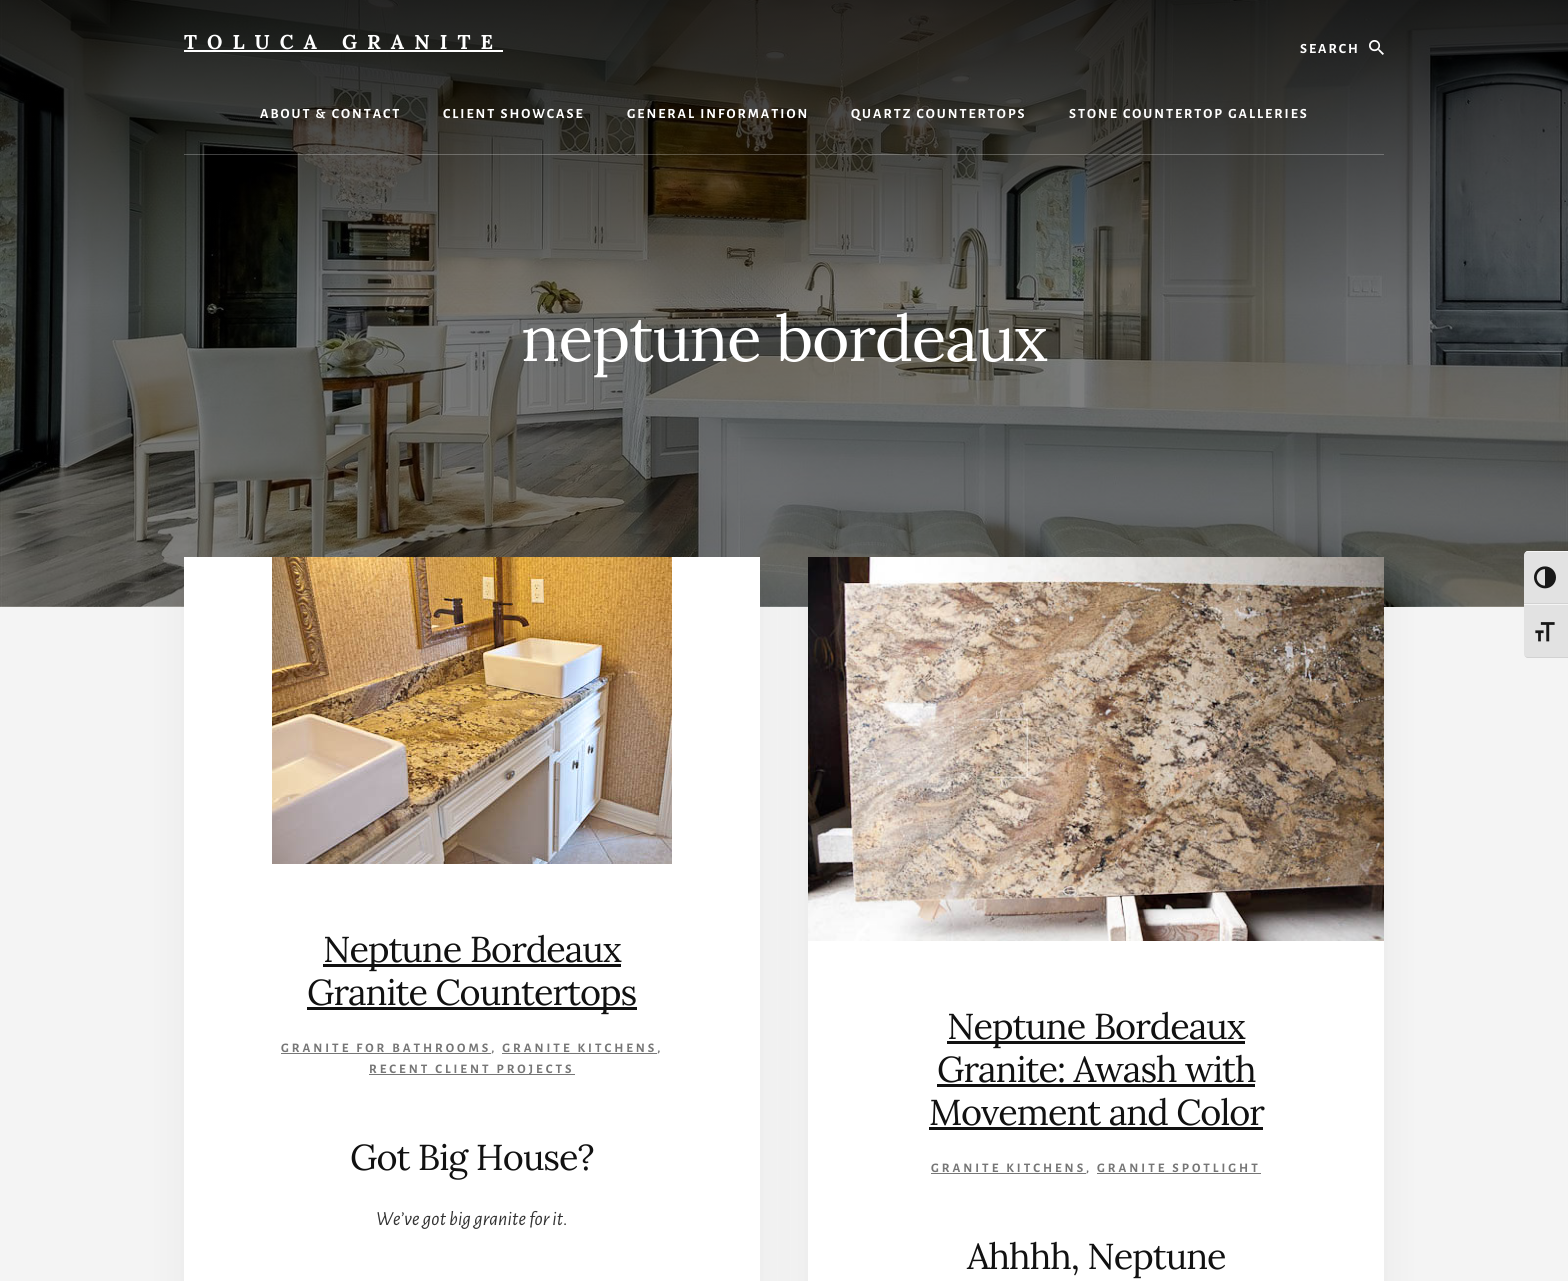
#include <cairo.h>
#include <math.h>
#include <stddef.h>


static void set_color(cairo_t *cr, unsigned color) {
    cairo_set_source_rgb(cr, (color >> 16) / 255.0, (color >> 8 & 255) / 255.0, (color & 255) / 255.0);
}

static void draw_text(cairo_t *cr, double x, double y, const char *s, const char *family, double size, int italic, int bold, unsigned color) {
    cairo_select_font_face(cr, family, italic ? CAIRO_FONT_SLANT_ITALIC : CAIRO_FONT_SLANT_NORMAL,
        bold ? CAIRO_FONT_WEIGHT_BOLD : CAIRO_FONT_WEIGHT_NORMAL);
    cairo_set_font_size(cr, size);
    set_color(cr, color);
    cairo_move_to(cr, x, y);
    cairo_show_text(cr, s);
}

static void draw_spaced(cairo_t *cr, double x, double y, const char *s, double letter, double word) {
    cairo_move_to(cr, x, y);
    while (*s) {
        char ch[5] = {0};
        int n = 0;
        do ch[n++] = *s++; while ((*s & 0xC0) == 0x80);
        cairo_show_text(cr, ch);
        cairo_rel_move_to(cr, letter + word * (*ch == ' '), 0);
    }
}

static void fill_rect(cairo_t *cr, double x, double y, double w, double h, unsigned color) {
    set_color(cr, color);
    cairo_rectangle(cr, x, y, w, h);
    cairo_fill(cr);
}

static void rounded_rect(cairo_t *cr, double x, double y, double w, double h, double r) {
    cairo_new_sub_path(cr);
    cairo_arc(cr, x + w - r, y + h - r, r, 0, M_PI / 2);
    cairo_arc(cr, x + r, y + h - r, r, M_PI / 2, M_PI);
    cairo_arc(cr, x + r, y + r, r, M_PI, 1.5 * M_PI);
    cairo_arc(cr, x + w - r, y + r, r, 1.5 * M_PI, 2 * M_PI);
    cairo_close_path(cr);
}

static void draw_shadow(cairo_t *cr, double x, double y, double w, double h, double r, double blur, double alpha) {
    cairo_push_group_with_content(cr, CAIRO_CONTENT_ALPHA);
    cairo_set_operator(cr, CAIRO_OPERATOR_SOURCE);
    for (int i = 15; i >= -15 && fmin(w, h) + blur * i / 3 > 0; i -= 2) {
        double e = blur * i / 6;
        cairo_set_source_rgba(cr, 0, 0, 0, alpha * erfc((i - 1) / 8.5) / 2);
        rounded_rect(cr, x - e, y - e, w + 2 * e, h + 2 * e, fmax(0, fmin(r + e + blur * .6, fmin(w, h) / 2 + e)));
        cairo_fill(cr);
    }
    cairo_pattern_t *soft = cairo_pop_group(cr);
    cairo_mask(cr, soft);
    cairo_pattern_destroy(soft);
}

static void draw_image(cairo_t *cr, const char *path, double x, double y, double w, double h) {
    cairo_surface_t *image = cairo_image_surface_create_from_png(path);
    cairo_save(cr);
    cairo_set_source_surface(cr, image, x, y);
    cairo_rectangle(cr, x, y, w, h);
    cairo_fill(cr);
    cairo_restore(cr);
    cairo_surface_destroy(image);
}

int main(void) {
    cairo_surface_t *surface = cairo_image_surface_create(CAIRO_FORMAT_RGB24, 1568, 1281);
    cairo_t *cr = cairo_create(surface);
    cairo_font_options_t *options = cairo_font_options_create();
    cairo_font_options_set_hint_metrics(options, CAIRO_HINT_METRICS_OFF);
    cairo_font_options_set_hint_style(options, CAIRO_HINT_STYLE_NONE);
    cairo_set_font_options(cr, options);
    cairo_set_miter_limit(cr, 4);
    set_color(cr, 0xF4F4F4);
    cairo_paint(cr);
    draw_image(cr, "assets/img1.png", 0, 0, 1568, 607);
    cairo_select_font_face(cr, "Lora", CAIRO_FONT_SLANT_NORMAL, CAIRO_FONT_WEIGHT_BOLD);
    cairo_set_font_size(cr, 20);
    set_color(cr, 0xFFFFFF);
    draw_spaced(cr, 184, 49, "TOLUCA GRANITE", 10, 0);
    fill_rect(cr, 184, 50, 319, 2, 0xFFFFFF);
    cairo_select_font_face(cr, "Alegreya Sans", CAIRO_FONT_SLANT_NORMAL, CAIRO_FONT_WEIGHT_BOLD);
    cairo_set_font_size(cr, 14);
    draw_spaced(cr, 1300, 53, "SEARCH", 2, 0);
    draw_image(cr, "assets/img2.png", 1369, 40, 15, 15);
    cairo_set_source_rgba(cr, 1, 1, 1, 0.25);
    cairo_rectangle(cr, 184, 154, 1200, 1);
    cairo_fill(cr);
    set_color(cr, 0xFFFFFF);
    draw_spaced(cr, 260, 118, "ABOUT & CONTACT", 2, 0);
    draw_spaced(cr, 443, 118, "CLIENT SHOWCASE", 2, 0);
    draw_spaced(cr, 627, 118, "GENERAL INFORMATION", 2, 0);
    draw_spaced(cr, 851, 118, "QUARTZ COUNTERTOPS", 2, 0);
    draw_spaced(cr, 1069, 118, "STONE COUNTERTOP GALLERIES", 2, 0);
    cairo_select_font_face(cr, "Lora", CAIRO_FONT_SLANT_NORMAL, CAIRO_FONT_WEIGHT_NORMAL);
    cairo_set_font_size(cr, 64);
    draw_spaced(cr, 521, 361, "neptune bordeaux", -1.25, 0);
    set_color(cr, 0x000000);
    draw_shadow(cr, 184, 582, 576, 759, 0, 20, 0.05);
    fill_rect(cr, 184, 557, 576, 724, 0xFFFFFF);
    draw_image(cr, "assets/img3.png", 272, 557, 400, 307);
    fill_rect(cr, 323, 964, 298, 3, 0x111111);
    cairo_set_font_size(cr, 36);
    draw_spaced(cr, 323, 962, "Neptune Bordeaux", -1, 0);
    fill_rect(cr, 307, 1007, 330, 3, 0x111111);
    draw_spaced(cr, 307, 1005, "Granite Countertops", -1, 0);
    fill_rect(cr, 281, 1053, 210, 1, 0x767676);
    cairo_select_font_face(cr, "Alegreya Sans", CAIRO_FONT_SLANT_NORMAL, CAIRO_FONT_WEIGHT_BOLD);
    cairo_set_font_size(cr, 13);
    draw_spaced(cr, 281, 1052, "GRANITE FOR BATHROOMS, GRANITE KITCHENS,", 3, 0);
    fill_rect(cr, 502, 1053, 155, 1, 0x767676);
    fill_rect(cr, 369, 1074, 206, 1, 0x767676);
    draw_spaced(cr, 369, 1073, "RECENT CLIENT PROJECTS", 3, 0);
    cairo_select_font_face(cr, "Lora", CAIRO_FONT_SLANT_NORMAL, CAIRO_FONT_WEIGHT_NORMAL);
    cairo_set_font_size(cr, 36);
    set_color(cr, 0x111111);
    draw_spaced(cr, 350, 1170, "Got Big House?", -1, 0);
    draw_text(cr, 376, 1225, "We’ve got big granite for it.", "Alegreya Sans", 20, 1, 0, 0x333333);
    set_color(cr, 0x000000);
    draw_shadow(cr, 808, 582, 576, 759, 0, 20, 0.05);
    fill_rect(cr, 808, 941, 576, 340, 0xFFFFFF);
    draw_image(cr, "assets/img4.png", 808, 557, 576, 384);
    fill_rect(cr, 947, 1041, 298, 3, 0x111111);
    cairo_select_font_face(cr, "Lora", CAIRO_FONT_SLANT_NORMAL, CAIRO_FONT_WEIGHT_NORMAL);
    cairo_set_font_size(cr, 36);
    draw_spaced(cr, 947, 1039, "Neptune Bordeaux", -1, 0);
    draw_spaced(cr, 937, 1082, "Granite: Awash with", -1, 0);
    fill_rect(cr, 937, 1084, 318, 3, 0x111111);
    draw_spaced(cr, 929, 1125, "Movement and Color", -1, 0);
    fill_rect(cr, 929, 1127, 334, 3, 0x111111);
    fill_rect(cr, 931, 1173, 155, 1, 0x767676);
    cairo_select_font_face(cr, "Alegreya Sans", CAIRO_FONT_SLANT_NORMAL, CAIRO_FONT_WEIGHT_BOLD);
    cairo_set_font_size(cr, 13);
    draw_spaced(cr, 931, 1172, "GRANITE KITCHENS, GRANITE SPOTLIGHT", 3, 0);
    fill_rect(cr, 1097, 1173, 164, 1, 0x767676);
    cairo_select_font_face(cr, "Lora", CAIRO_FONT_SLANT_NORMAL, CAIRO_FONT_WEIGHT_NORMAL);
    cairo_set_font_size(cr, 36);
    set_color(cr, 0x111111);
    draw_spaced(cr, 967, 1269, "Ahhhh, Neptune", -1, 0);
    set_color(cr, 0xE2E2E2);
    cairo_new_path(cr);
    cairo_move_to(cr, 1528, 551);
    cairo_line_to(cr, 1568, 551);
    cairo_line_to(cr, 1568, 604);
    cairo_line_to(cr, 1524, 604);
    cairo_line_to(cr, 1524, 555);
    cairo_curve_to(cr, 1524, 553, 1526, 551, 1528, 551);
    cairo_close_path(cr);
    cairo_fill(cr);
    set_color(cr, 0xF5F5F5);
    cairo_new_path(cr);
    cairo_move_to(cr, 1528, 552);
    cairo_line_to(cr, 1568, 552);
    cairo_line_to(cr, 1568, 551);
    cairo_line_to(cr, 1528, 551);
    cairo_curve_to(cr, 1526, 551, 1524, 553, 1524, 555);
    cairo_curve_to(cr, 1524, 553, 1526, 552, 1528, 552);
    cairo_close_path(cr);
    cairo_fill(cr);
    fill_rect(cr, 1524, 603, 44, 1, 0xD2D2D2);
    draw_image(cr, "assets/img5.png", 1534, 566, 22, 23);
    set_color(cr, 0xE2E2E2);
    cairo_new_path(cr);
    cairo_move_to(cr, 1524, 604);
    cairo_line_to(cr, 1568, 604);
    cairo_line_to(cr, 1568, 658);
    cairo_line_to(cr, 1528, 658);
    cairo_curve_to(cr, 1526, 658, 1524, 656, 1524, 654);
    cairo_close_path(cr);
    cairo_fill(cr);
    fill_rect(cr, 1524, 604, 44, 1, 0xF5F5F5);
    set_color(cr, 0xD2D2D2);
    cairo_new_path(cr);
    cairo_move_to(cr, 1568, 658);
    cairo_line_to(cr, 1568, 657);
    cairo_line_to(cr, 1528, 657);
    cairo_curve_to(cr, 1526, 657, 1524, 656, 1524, 654);
    cairo_curve_to(cr, 1524, 656, 1526, 658, 1528, 658);
    cairo_close_path(cr);
    cairo_fill(cr);
    draw_image(cr, "assets/img6.png", 1535, 622, 20, 20);
    cairo_surface_write_to_png(surface, "output.png");
    cairo_font_options_destroy(options);
    cairo_destroy(cr);
    cairo_surface_destroy(surface);
    return 0;
}
